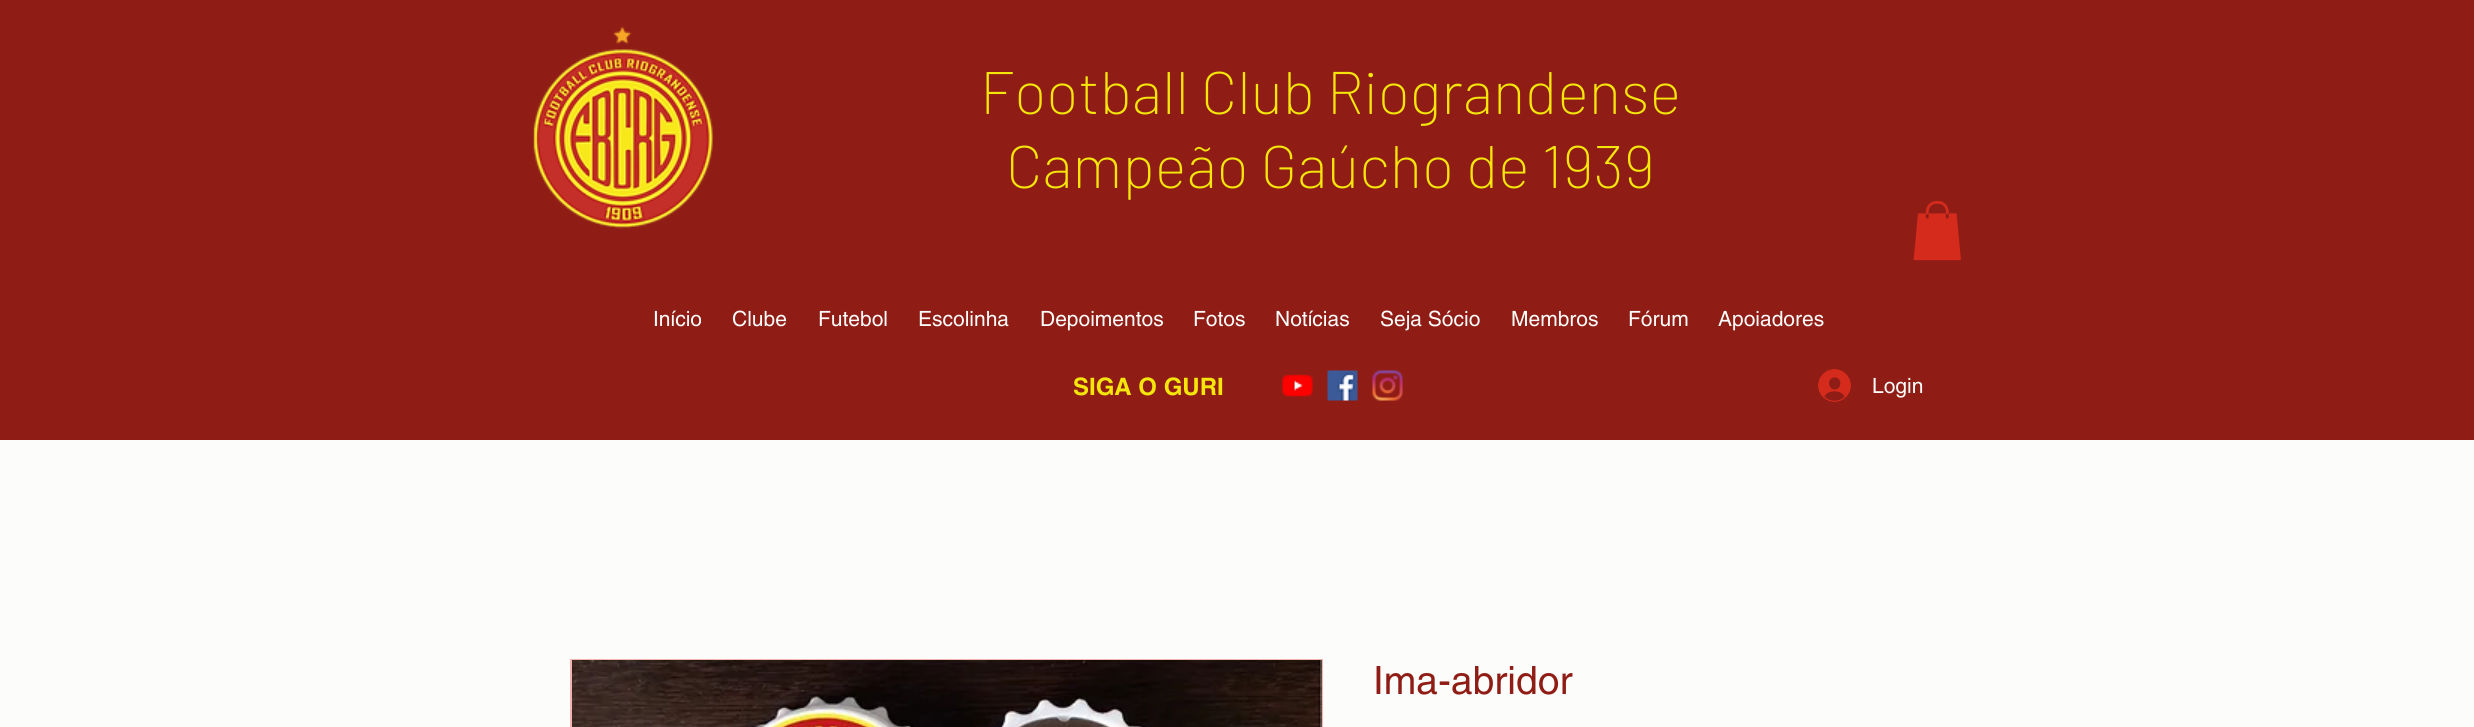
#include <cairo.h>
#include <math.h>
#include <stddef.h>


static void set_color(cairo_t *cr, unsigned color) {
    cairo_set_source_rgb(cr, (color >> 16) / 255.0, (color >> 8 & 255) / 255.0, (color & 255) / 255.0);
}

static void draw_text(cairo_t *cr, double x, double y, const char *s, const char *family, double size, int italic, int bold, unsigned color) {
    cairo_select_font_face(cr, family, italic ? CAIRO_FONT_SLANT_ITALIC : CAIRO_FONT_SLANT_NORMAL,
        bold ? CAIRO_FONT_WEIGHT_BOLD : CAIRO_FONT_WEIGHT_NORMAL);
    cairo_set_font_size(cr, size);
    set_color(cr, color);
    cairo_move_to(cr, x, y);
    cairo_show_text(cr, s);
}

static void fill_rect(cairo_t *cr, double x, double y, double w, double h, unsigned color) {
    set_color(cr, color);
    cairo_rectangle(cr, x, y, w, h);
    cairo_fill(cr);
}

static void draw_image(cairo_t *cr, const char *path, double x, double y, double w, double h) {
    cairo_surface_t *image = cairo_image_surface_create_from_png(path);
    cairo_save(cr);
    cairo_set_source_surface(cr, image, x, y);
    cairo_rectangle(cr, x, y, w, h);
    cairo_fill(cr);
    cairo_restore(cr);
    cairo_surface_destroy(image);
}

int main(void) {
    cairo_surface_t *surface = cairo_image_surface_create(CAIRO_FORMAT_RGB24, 2474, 727);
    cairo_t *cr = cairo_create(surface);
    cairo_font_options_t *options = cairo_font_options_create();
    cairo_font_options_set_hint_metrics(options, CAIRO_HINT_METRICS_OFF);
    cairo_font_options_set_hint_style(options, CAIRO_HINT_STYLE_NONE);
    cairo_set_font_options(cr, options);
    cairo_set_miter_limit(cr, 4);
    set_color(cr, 0xFCFCFB);
    cairo_paint(cr);
    fill_rect(cr, 0, 0, 2474, 440, 0x901D15);
    draw_image(cr, "assets/img1.png", 533, 26, 180, 203);
    draw_text(cr, 980, 114, "Football Club Riograndense", "Barlow ExtraLight", 60, 0, 0, 0xF4E60B);
    draw_text(cr, 1006, 188, "Campeão Gaúcho de 1939", "Barlow ExtraLight", 60, 0, 0, 0xF4E60B);
    draw_image(cr, "assets/img2.png", 1913, 201, 48, 60);
    draw_text(cr, 653, 326, "Início", "helvetica", 21, 0, 0, 0xFCFCFB);
    draw_text(cr, 732, 326, "Clube", "helvetica", 21, 0, 0, 0xFCFCFB);
    draw_text(cr, 818, 326, "Futebol", "helvetica", 21, 0, 0, 0xFCFCFB);
    draw_text(cr, 918, 326, "Escolinha", "helvetica", 21, 0, 0, 0xFCFCFB);
    draw_text(cr, 1040, 326, "Depoimentos", "helvetica", 21, 0, 0, 0xFCFCFB);
    draw_text(cr, 1193, 326, "Fotos", "helvetica", 21, 0, 0, 0xFCFCFB);
    draw_text(cr, 1275, 326, "Notícias", "helvetica", 21, 0, 0, 0xFCFCFB);
    draw_text(cr, 1380, 326, "Seja Sócio", "helvetica", 21, 0, 0, 0xFCFCFB);
    draw_text(cr, 1511, 326, "Membros", "helvetica", 21, 0, 0, 0xFCFCFB);
    draw_text(cr, 1628, 326, "Fórum", "helvetica", 21, 0, 0, 0xFCFCFB);
    draw_text(cr, 1718, 326, "Apoiadores", "helvetica", 21, 0, 0, 0xFCFCFB);
    draw_text(cr, 1073, 395, "SIGA O GURI", "helvetica", 24, 0, 1, 0xF4E60B);
    draw_image(cr, "assets/img3.png", 1282, 374, 31, 23);
    draw_image(cr, "assets/img4.png", 1327, 370, 31, 31);
    draw_image(cr, "assets/img5.png", 1372, 370, 31, 31);
    draw_image(cr, "assets/img6.png", 1818, 369, 33, 33);
    draw_text(cr, 1872, 393, "Login", "helvetica", 21, 0, 0, 0xFCFCFB);
    cairo_rectangle(cr, 571, 660, 751, 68);
    set_color(cr, 0xF3B4AF);
    cairo_stroke(cr);
    draw_image(cr, "assets/img7.png", 572, 660, 750, 67);
    draw_text(cr, 1373, 694, "Ima-abridor", "helvetica", 39, 0, 0, 0x901D15);
    cairo_surface_write_to_png(surface, "output.png");
    cairo_font_options_destroy(options);
    cairo_destroy(cr);
    cairo_surface_destroy(surface);
    return 0;
}
